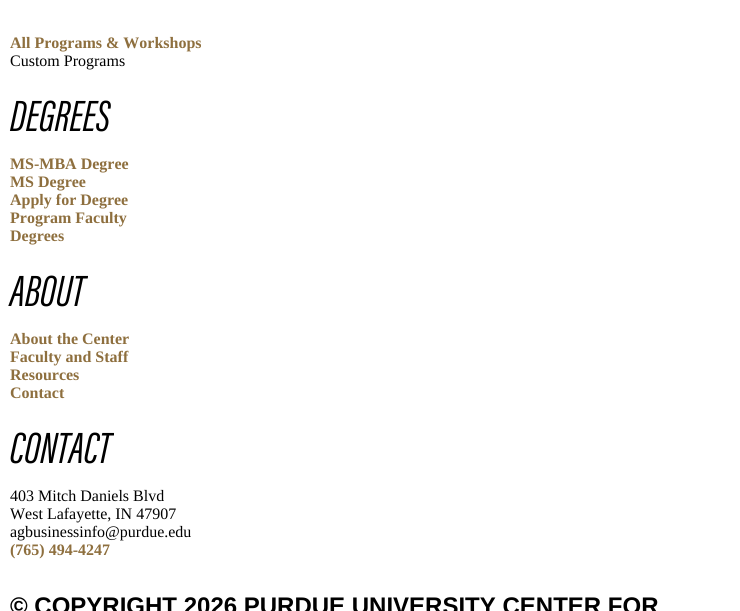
#include <cairo.h>
#include <math.h>
#include <stddef.h>


static void set_color(cairo_t *cr, unsigned color) {
    cairo_set_source_rgb(cr, (color >> 16) / 255.0, (color >> 8 & 255) / 255.0, (color & 255) / 255.0);
}

static void draw_text(cairo_t *cr, double x, double y, const char *s, const char *family, double size, int italic, int bold, unsigned color) {
    cairo_select_font_face(cr, family, italic ? CAIRO_FONT_SLANT_ITALIC : CAIRO_FONT_SLANT_NORMAL,
        bold ? CAIRO_FONT_WEIGHT_BOLD : CAIRO_FONT_WEIGHT_NORMAL);
    cairo_set_font_size(cr, size);
    set_color(cr, color);
    cairo_move_to(cr, x, y);
    cairo_show_text(cr, s);
}

int main(void) {
    cairo_surface_t *surface = cairo_image_surface_create(CAIRO_FORMAT_RGB24, 740, 611);
    cairo_t *cr = cairo_create(surface);
    cairo_font_options_t *options = cairo_font_options_create();
    cairo_font_options_set_hint_metrics(options, CAIRO_HINT_METRICS_OFF);
    cairo_font_options_set_hint_style(options, CAIRO_HINT_STYLE_NONE);
    cairo_set_font_options(cr, options);
    cairo_set_miter_limit(cr, 4);
    set_color(cr, 0xFFFFFF);
    cairo_paint(cr);
    draw_text(cr, 10, 48, "All Programs & Workshops", "Liberation Serif", 16, 0, 1, 0x8E6F3E);
    draw_text(cr, 10, 66, "Custom Programs", "Liberation Serif", 16, 0, 0, 0x000000);
    draw_text(cr, 10, 131, "DEGREES", "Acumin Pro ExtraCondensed", 45, 1, 0, 0x000000);
    draw_text(cr, 10, 169, "MS-MBA Degree", "Liberation Serif", 16, 0, 1, 0x8E6F3E);
    draw_text(cr, 10, 187, "MS Degree", "Liberation Serif", 16, 0, 1, 0x8E6F3E);
    draw_text(cr, 10, 205, "Apply for Degree", "Liberation Serif", 16, 0, 1, 0x8E6F3E);
    draw_text(cr, 10, 223, "Program Faculty", "Liberation Serif", 16, 0, 1, 0x8E6F3E);
    draw_text(cr, 10, 241, "Degrees", "Liberation Serif", 16, 0, 1, 0x8E6F3E);
    draw_text(cr, 10, 306, "ABOUT", "Acumin Pro ExtraCondensed", 45, 1, 0, 0x000000);
    draw_text(cr, 10, 344, "About the Center", "Liberation Serif", 16, 0, 1, 0x8E6F3E);
    draw_text(cr, 10, 362, "Faculty and Staff", "Liberation Serif", 16, 0, 1, 0x8E6F3E);
    draw_text(cr, 10, 380, "Resources", "Liberation Serif", 16, 0, 1, 0x8E6F3E);
    draw_text(cr, 10, 398, "Contact", "Liberation Serif", 16, 0, 1, 0x8E6F3E);
    draw_text(cr, 10, 463, "CONTACT", "Acumin Pro ExtraCondensed", 45, 1, 0, 0x000000);
    draw_text(cr, 10, 501, "403 Mitch Daniels Blvd", "Liberation Serif", 16, 0, 0, 0x000000);
    draw_text(cr, 10, 519, "West Lafayette, IN 47907", "Liberation Serif", 16, 0, 0, 0x000000);
    draw_text(cr, 10, 537, "agbusinessinfo@purdue.edu", "Liberation Serif", 16, 0, 0, 0x000000);
    draw_text(cr, 10, 555, "(765) 494-4247", "Liberation Serif", 16, 0, 1, 0x8E6F3E);
    draw_text(cr, 10, 614, "© COPYRIGHT 2026 PURDUE UNIVERSITY CENTER FOR", "Liberation Sans", 24, 0, 1, 0x000000);
    cairo_surface_write_to_png(surface, "output.png");
    cairo_font_options_destroy(options);
    cairo_destroy(cr);
    cairo_surface_destroy(surface);
    return 0;
}
